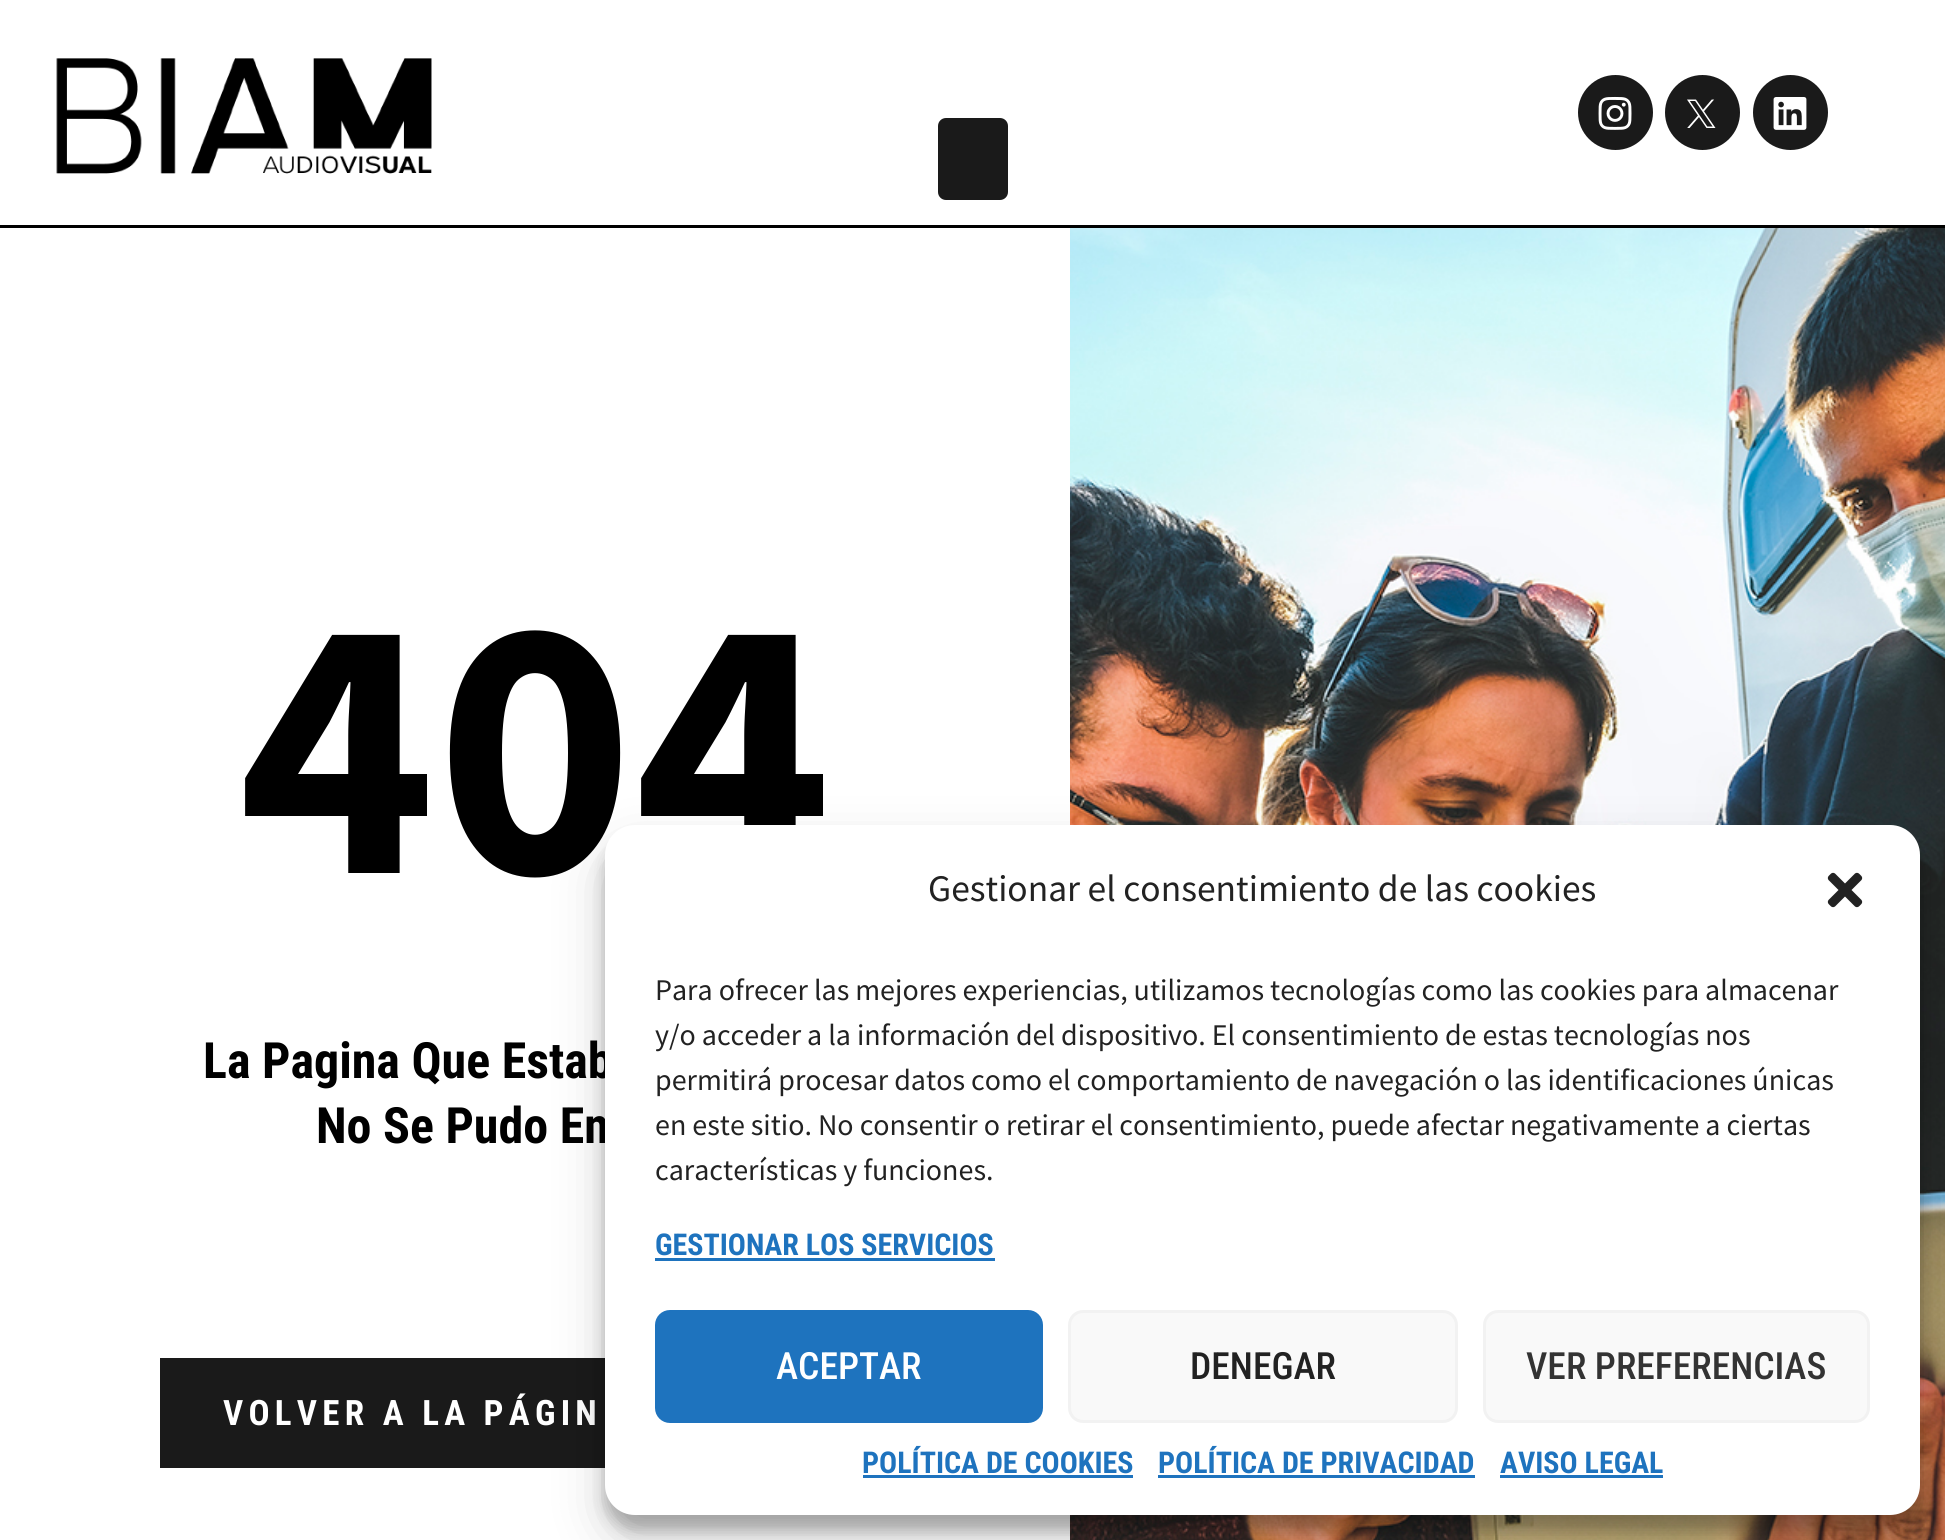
#include <cairo.h>
#include <math.h>
#include <stddef.h>


static void set_color(cairo_t *cr, unsigned color) {
    cairo_set_source_rgb(cr, (color >> 16) / 255.0, (color >> 8 & 255) / 255.0, (color & 255) / 255.0);
}

static void draw_text(cairo_t *cr, double x, double y, const char *s, const char *family, double size, int italic, int bold, unsigned color) {
    cairo_select_font_face(cr, family, italic ? CAIRO_FONT_SLANT_ITALIC : CAIRO_FONT_SLANT_NORMAL,
        bold ? CAIRO_FONT_WEIGHT_BOLD : CAIRO_FONT_WEIGHT_NORMAL);
    cairo_set_font_size(cr, size);
    set_color(cr, color);
    cairo_move_to(cr, x, y);
    cairo_show_text(cr, s);
}

static void draw_spaced(cairo_t *cr, double x, double y, const char *s, double letter, double word) {
    cairo_move_to(cr, x, y);
    while (*s) {
        char ch[5] = {0};
        int n = 0;
        do ch[n++] = *s++; while ((*s & 0xC0) == 0x80);
        cairo_show_text(cr, ch);
        cairo_rel_move_to(cr, letter + word * (*ch == ' '), 0);
    }
}

static void fill_rect(cairo_t *cr, double x, double y, double w, double h, unsigned color) {
    set_color(cr, color);
    cairo_rectangle(cr, x, y, w, h);
    cairo_fill(cr);
}

static void rounded_rect(cairo_t *cr, double x, double y, double w, double h, double r) {
    cairo_new_sub_path(cr);
    cairo_arc(cr, x + w - r, y + h - r, r, 0, M_PI / 2);
    cairo_arc(cr, x + r, y + h - r, r, M_PI / 2, M_PI);
    cairo_arc(cr, x + r, y + r, r, M_PI, 1.5 * M_PI);
    cairo_arc(cr, x + w - r, y + r, r, 1.5 * M_PI, 2 * M_PI);
    cairo_close_path(cr);
}

static void draw_shadow(cairo_t *cr, double x, double y, double w, double h, double r, double blur, double alpha) {
    cairo_push_group_with_content(cr, CAIRO_CONTENT_ALPHA);
    cairo_set_operator(cr, CAIRO_OPERATOR_SOURCE);
    for (int i = 15; i >= -15 && fmin(w, h) + blur * i / 3 > 0; i -= 2) {
        double e = blur * i / 6;
        cairo_set_source_rgba(cr, 0, 0, 0, alpha * erfc((i - 1) / 8.5) / 2);
        rounded_rect(cr, x - e, y - e, w + 2 * e, h + 2 * e, fmax(0, fmin(r + e + blur * .6, fmin(w, h) / 2 + e)));
        cairo_fill(cr);
    }
    cairo_pattern_t *soft = cairo_pop_group(cr);
    cairo_mask(cr, soft);
    cairo_pattern_destroy(soft);
}

static void draw_image(cairo_t *cr, const char *path, double x, double y, double w, double h) {
    cairo_surface_t *image = cairo_image_surface_create_from_png(path);
    cairo_save(cr);
    cairo_set_source_surface(cr, image, x, y);
    cairo_rectangle(cr, x, y, w, h);
    cairo_fill(cr);
    cairo_restore(cr);
    cairo_surface_destroy(image);
}

int main(void) {
    cairo_surface_t *surface = cairo_image_surface_create(CAIRO_FORMAT_RGB24, 1945, 1540);
    cairo_t *cr = cairo_create(surface);
    cairo_font_options_t *options = cairo_font_options_create();
    cairo_font_options_set_hint_metrics(options, CAIRO_HINT_METRICS_OFF);
    cairo_font_options_set_hint_style(options, CAIRO_HINT_STYLE_NONE);
    cairo_set_font_options(cr, options);
    cairo_set_miter_limit(cr, 4);
    set_color(cr, 0xFFFFFF);
    cairo_paint(cr);
    fill_rect(cr, 0, 225, 1945, 3, 0x000000);
    draw_image(cr, "assets/img1.png", 56, 58, 376, 116);
    set_color(cr, 0x1A1A1A);
    rounded_rect(cr, 938, 118, 70, 82, 8);
    cairo_fill(cr);
    cairo_arc(cr, 1615.5, 112.5, 37.5, 0, 2 * M_PI);
    cairo_fill(cr);
    draw_image(cr, "assets/img2.png", 1598, 96, 34, 34);
    cairo_arc(cr, 1702.5, 112.5, 37.5, 0, 2 * M_PI);
    cairo_fill(cr);
    draw_image(cr, "assets/img3.png", 1687, 99, 29, 29);
    cairo_arc(cr, 1790.5, 112.5, 37.5, 0, 2 * M_PI);
    cairo_fill(cr);
    draw_image(cr, "assets/img4.png", 1773, 97, 34, 33);
    draw_text(cr, 238, 873, "404", "Source Sans Pro", 375, 0, 1, 0x000000);
    draw_text(cr, 203, 1078, "La Pagina Que Estab", "Roboto Condensed", 50, 0, 1, 0x000000);
    draw_text(cr, 316, 1143, "No Se Pudo En", "Roboto Condensed", 50, 0, 1, 0x000000);
    fill_rect(cr, 160, 1358, 445, 110, 0x1A1A1A);
    cairo_set_font_size(cr, 35);
    set_color(cr, 0xFFFFFF);
    draw_spaced(cr, 223, 1425, "VOLVER A LA PÁGIN", 5.25, 0);
    draw_image(cr, "assets/img5.png", 1070, 228, 875, 1312);
    set_color(cr, 0x000000);
    draw_shadow(cr, 605, 840, 1315, 690, 30, 7.5, 0.23);
    draw_shadow(cr, 605, 850, 1315, 690, 30, 25, 0.19);
    set_color(cr, 0xFFFFFF);
    rounded_rect(cr, 605, 825, 1315, 690, 30);
    cairo_fill(cr);
    draw_text(cr, 928, 901, "Gestionar el consentimiento de las cookies", "Source Sans Pro", 37.5, 0, 0, 0x222222);
    draw_image(cr, "assets/img6.png", 1827, 872, 36, 36);
    draw_text(cr, 655, 1000, "Para ofrecer las mejores experiencias, utilizamos tecnologías como las cookies para almacenar", "Source Sans Pro", 30, 0, 0, 0x222222);
    draw_text(cr, 655, 1045, "y/o acceder a la información del dispositivo. El consentimiento de estas tecnologías nos", "Source Sans Pro", 30, 0, 0, 0x222222);
    draw_text(cr, 655, 1090, "permitirá procesar datos como el comportamiento de navegación o las identificaciones únicas", "Source Sans Pro", 30, 0, 0, 0x222222);
    draw_text(cr, 655, 1135, "en este sitio. No consentir o retirar el consentimiento, puede afectar negativamente a ciertas", "Source Sans Pro", 30, 0, 0, 0x222222);
    draw_text(cr, 655, 1180, "características y funciones.", "Source Sans Pro", 30, 0, 0, 0x222222);
    draw_text(cr, 655, 1255, "GESTIONAR LOS SERVICIOS", "Roboto Condensed", 30, 0, 1, 0x1E73BE);
    fill_rect(cr, 655, 1258, 340, 3, 0x1E73BE);
    rounded_rect(cr, 656.5, 1311.5, 385, 110, 13.5);
    cairo_fill_preserve(cr);
    cairo_set_line_width(cr, 3);
    cairo_stroke(cr);
    draw_text(cr, 776, 1379, "ACEPTAR", "Roboto Condensed Medium", 37.5, 0, 0, 0xFFFFFF);
    set_color(cr, 0xF9F9F9);
    rounded_rect(cr, 1069.5, 1311.5, 387, 110, 13.5);
    cairo_fill_preserve(cr);
    set_color(cr, 0xF2F2F2);
    cairo_stroke(cr);
    draw_text(cr, 1190, 1379, "DENEGAR", "Roboto Condensed Medium", 37.5, 0, 0, 0x222222);
    set_color(cr, 0xF9F9F9);
    rounded_rect(cr, 1484.5, 1311.5, 384, 110, 13.5);
    cairo_fill_preserve(cr);
    set_color(cr, 0xF2F2F2);
    cairo_stroke(cr);
    draw_text(cr, 1526, 1379, "VER PREFERENCIAS", "Roboto Condensed Medium", 37.5, 0, 0, 0x333333);
    draw_text(cr, 862, 1473, "POLÍTICA DE COOKIES", "Roboto Condensed", 30, 0, 1, 0x1E73BE);
    fill_rect(cr, 863, 1475, 270, 3, 0x1E73BE);
    draw_text(cr, 1158, 1473, "POLÍTICA DE PRIVACIDAD", "Roboto Condensed", 30, 0, 1, 0x1E73BE);
    fill_rect(cr, 1158, 1475, 317, 3, 0x1E73BE);
    draw_text(cr, 1500, 1473, "AVISO LEGAL", "Roboto Condensed", 30, 0, 1, 0x1E73BE);
    fill_rect(cr, 1500, 1475, 163, 3, 0x1E73BE);
    cairo_surface_write_to_png(surface, "output.png");
    cairo_font_options_destroy(options);
    cairo_destroy(cr);
    cairo_surface_destroy(surface);
    return 0;
}
